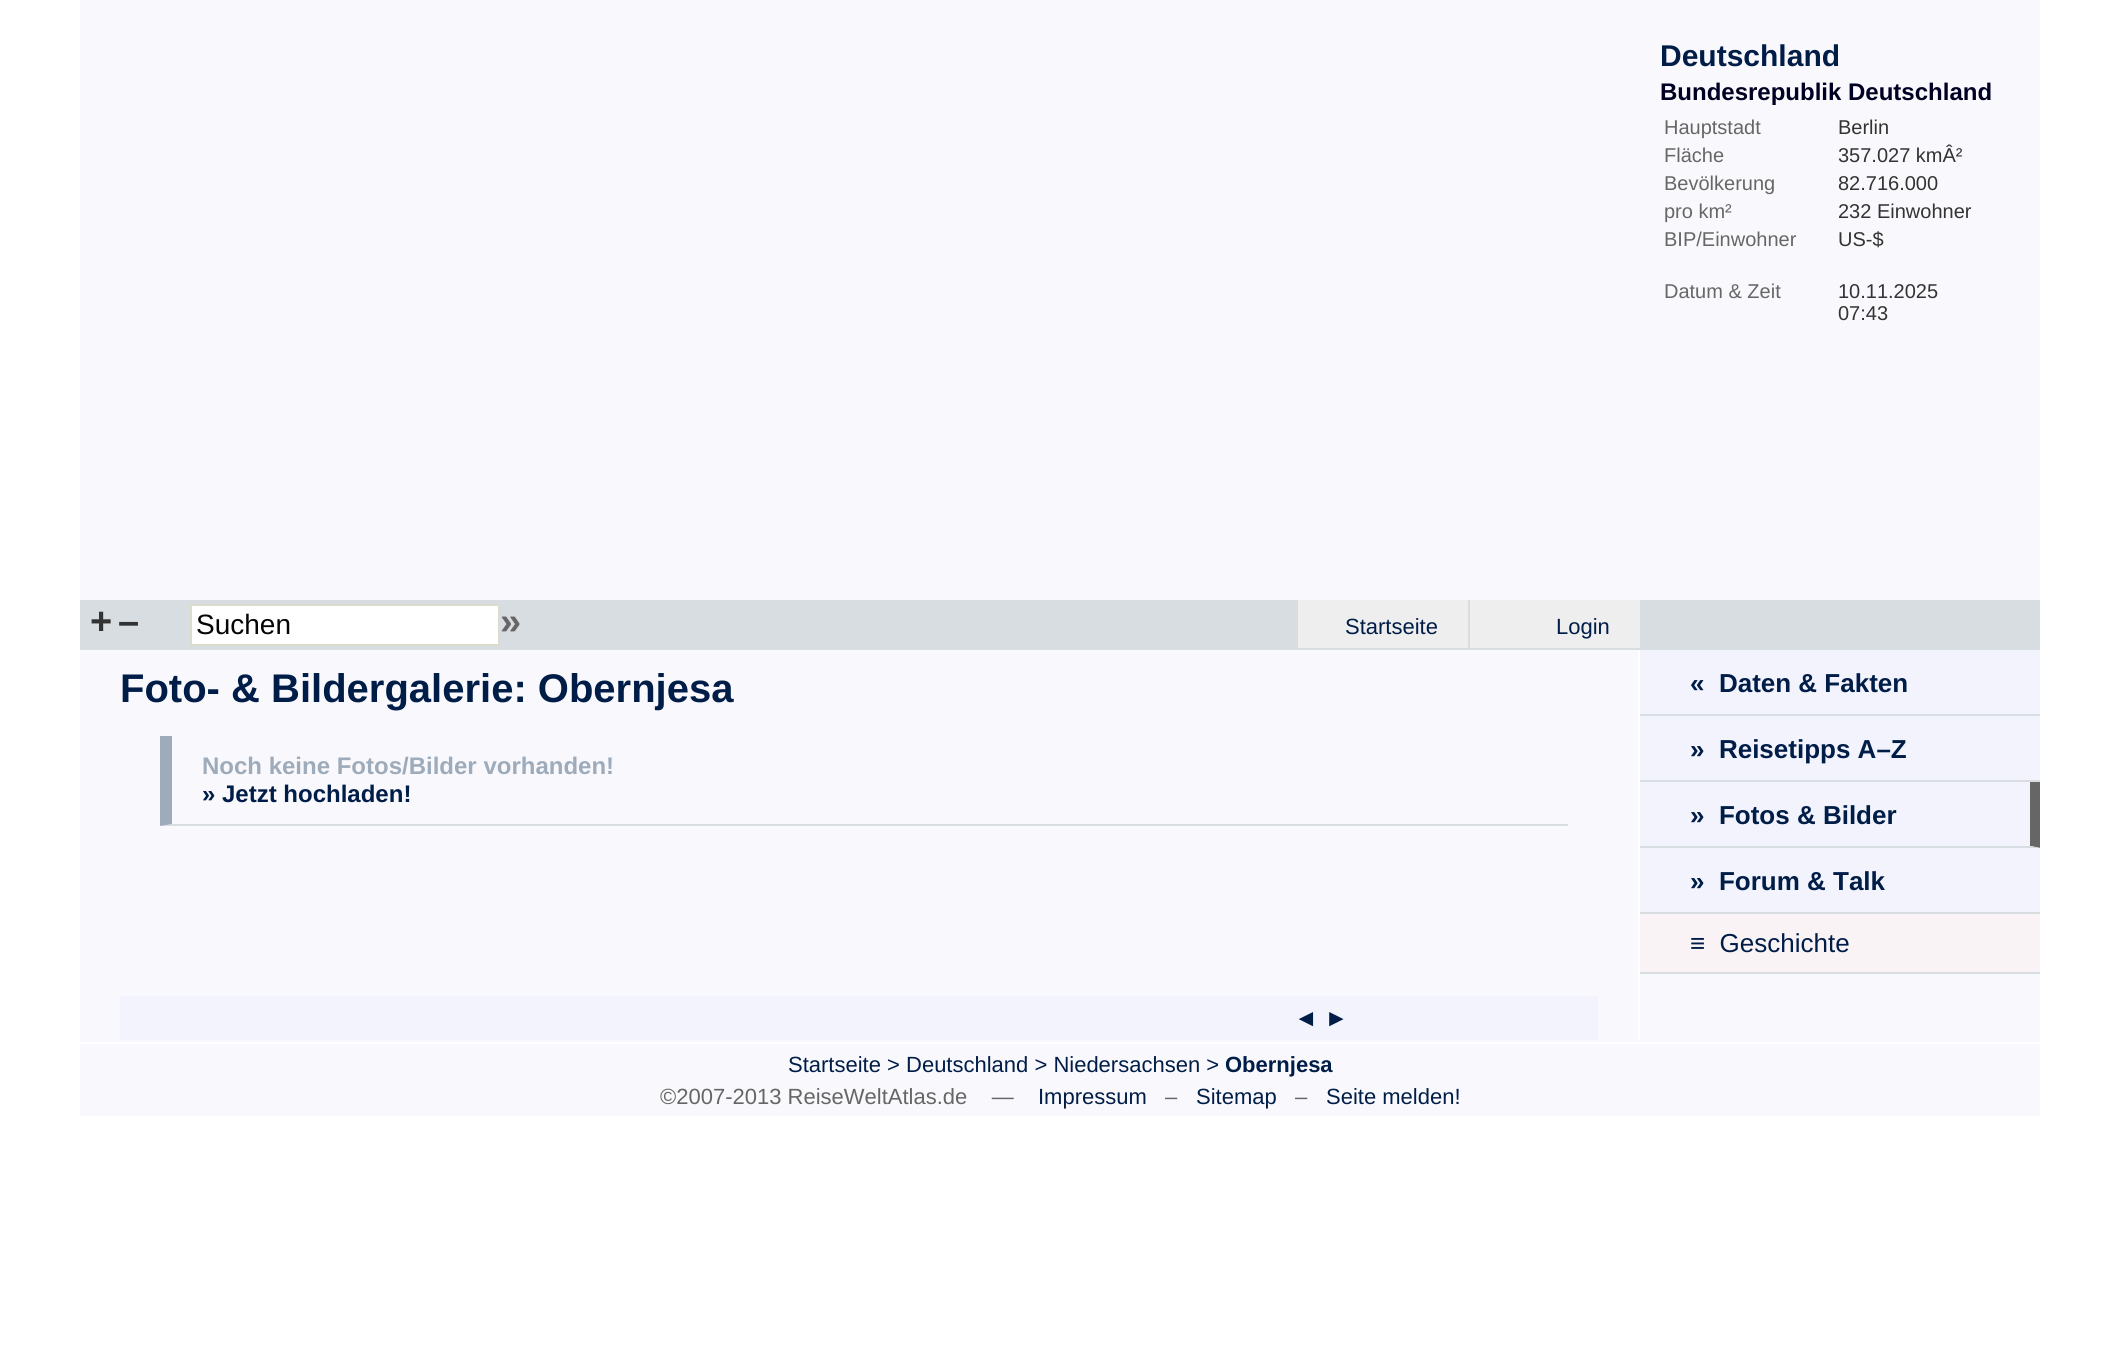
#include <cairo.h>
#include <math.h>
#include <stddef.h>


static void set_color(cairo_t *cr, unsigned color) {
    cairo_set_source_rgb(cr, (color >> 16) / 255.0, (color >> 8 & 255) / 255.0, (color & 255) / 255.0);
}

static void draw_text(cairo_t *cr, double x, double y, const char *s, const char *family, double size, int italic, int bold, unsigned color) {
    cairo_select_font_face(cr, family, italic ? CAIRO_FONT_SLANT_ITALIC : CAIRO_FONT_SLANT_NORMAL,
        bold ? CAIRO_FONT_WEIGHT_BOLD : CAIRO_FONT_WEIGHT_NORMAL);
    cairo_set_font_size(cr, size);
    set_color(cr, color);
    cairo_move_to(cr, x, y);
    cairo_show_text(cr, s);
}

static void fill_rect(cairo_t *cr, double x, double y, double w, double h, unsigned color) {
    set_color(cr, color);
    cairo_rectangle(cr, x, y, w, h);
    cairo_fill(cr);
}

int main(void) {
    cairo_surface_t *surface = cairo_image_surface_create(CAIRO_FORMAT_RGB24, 2120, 1367);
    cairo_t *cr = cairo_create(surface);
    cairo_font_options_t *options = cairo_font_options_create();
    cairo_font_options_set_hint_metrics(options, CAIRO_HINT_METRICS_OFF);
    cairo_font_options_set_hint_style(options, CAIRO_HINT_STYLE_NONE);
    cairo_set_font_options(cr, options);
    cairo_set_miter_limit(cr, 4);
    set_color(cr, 0xFFFFFF);
    cairo_paint(cr);
    fill_rect(cr, 80, 0, 1960, 1116, 0xF9F9FD);
    draw_text(cr, 1660, 66, "Deutschland", "Liberation Sans", 30, 0, 1, 0x001D48);
    draw_text(cr, 1660, 100, "Bundesrepublik Deutschland", "Liberation Sans", 24, 0, 1, 0x000022);
    draw_text(cr, 1664, 134, "Hauptstadt", "Liberation Sans", 20, 0, 0, 0x666666);
    draw_text(cr, 1838, 134, "Berlin", "Liberation Sans", 20, 0, 0, 0x333333);
    draw_text(cr, 1664, 162, "Fläche", "Liberation Sans", 20, 0, 0, 0x666666);
    draw_text(cr, 1838, 162, "357.027 kmÂ²", "Liberation Sans", 20, 0, 0, 0x333333);
    draw_text(cr, 1664, 190, "Bevölkerung", "Liberation Sans", 20, 0, 0, 0x666666);
    draw_text(cr, 1838, 190, "82.716.000", "Liberation Sans", 20, 0, 0, 0x333333);
    draw_text(cr, 1664, 218, "pro km²", "Liberation Sans", 20, 0, 0, 0x666666);
    draw_text(cr, 1838, 218, "232 Einwohner", "Liberation Sans", 20, 0, 0, 0x333333);
    draw_text(cr, 1664, 246, "BIP/Einwohner", "Liberation Sans", 20, 0, 0, 0x666666);
    draw_text(cr, 1838, 246, "US-$", "Liberation Sans", 20, 0, 0, 0x333333);
    draw_text(cr, 1664, 298, "Datum & Zeit", "Liberation Sans", 20, 0, 0, 0x666666);
    draw_text(cr, 1838, 298, "10.11.2025", "Liberation Sans", 20, 0, 0, 0x333333);
    draw_text(cr, 1838, 320, "07:43", "Liberation Sans", 20, 0, 0, 0x333333);
    fill_rect(cr, 80, 600, 1960, 50, 0xD8DDE2);
    draw_text(cr, 90, 634, "+", "Liberation Sans", 38, 0, 1, 0x333333);
    draw_text(cr, 118, 634, "–", "Liberation Sans", 38, 0, 1, 0x333333);
    set_color(cr, 0xFFFFFF);
    cairo_rectangle(cr, 191, 605, 308, 40);
    cairo_fill_preserve(cr);
    set_color(cr, 0xDCDCCE);
    cairo_stroke(cr);
    draw_text(cr, 196, 634, "Suchen", "Liberation Sans", 28, 0, 0, 0x050505);
    draw_text(cr, 500, 634, "»", "Liberation Sans", 38, 0, 1, 0x666666);
    fill_rect(cr, 1298, 600, 170, 48, 0xEEEEEE);
    draw_text(cr, 1345, 634, "Startseite", "Liberation Sans", 22, 0, 0, 0x001D48);
    fill_rect(cr, 1470, 600, 170, 48, 0xEEEEEE);
    draw_text(cr, 1556, 634, "Login", "Liberation Sans", 22, 0, 0, 0x001D48);
    fill_rect(cr, 1638, 650, 2, 390, 0xFFFFFF);
    draw_text(cr, 120, 702, "Foto- & Bildergalerie: Obernjesa", "Liberation Sans", 40, 0, 1, 0x001D48);
    set_color(cr, 0xD8DDE2);
    cairo_new_path(cr);
    cairo_move_to(cr, 1568, 826);
    cairo_line_to(cr, 160, 826);
    cairo_line_to(cr, 172, 824);
    cairo_line_to(cr, 1568, 824);
    cairo_close_path(cr);
    cairo_fill(cr);
    set_color(cr, 0x9DABBA);
    cairo_new_path(cr);
    cairo_move_to(cr, 160, 826);
    cairo_line_to(cr, 160, 736);
    cairo_line_to(cr, 172, 736);
    cairo_line_to(cr, 172, 824);
    cairo_close_path(cr);
    cairo_fill(cr);
    draw_text(cr, 202, 774, "Noch keine Fotos/Bilder vorhanden!", "Liberation Sans", 24, 0, 1, 0x9DABBA);
    draw_text(cr, 202, 802, "» Jetzt hochladen!", "Liberation Sans", 24, 0, 1, 0x001D48);
    fill_rect(cr, 120, 996, 1478, 44, 0xF3F3FD);
    draw_text(cr, 1294, 1026, "◄ ►", "Liberation Sans", 24, 0, 0, 0x001D48);
    fill_rect(cr, 1640, 650, 400, 64, 0xF3F3FD);
    fill_rect(cr, 1640, 714, 400, 2, 0xD8DDE2);
    draw_text(cr, 1690, 692, "«  Daten & Fakten", "Liberation Sans", 26, 0, 1, 0x001D48);
    fill_rect(cr, 1640, 716, 400, 64, 0xF3F3FD);
    fill_rect(cr, 1640, 780, 400, 2, 0xD8DDE2);
    draw_text(cr, 1690, 758, "»  Reisetipps A–Z", "Liberation Sans", 26, 0, 1, 0x001D48);
    fill_rect(cr, 1640, 782, 400, 130, 0xF3F3FD);
    set_color(cr, 0x666666);
    cairo_new_path(cr);
    cairo_move_to(cr, 2040, 782);
    cairo_line_to(cr, 2040, 848);
    cairo_line_to(cr, 2030, 846);
    cairo_line_to(cr, 2030, 782);
    cairo_close_path(cr);
    cairo_fill(cr);
    set_color(cr, 0xD8DDE2);
    cairo_new_path(cr);
    cairo_move_to(cr, 2040, 848);
    cairo_line_to(cr, 1640, 848);
    cairo_line_to(cr, 1640, 846);
    cairo_line_to(cr, 2030, 846);
    cairo_close_path(cr);
    cairo_fill(cr);
    draw_text(cr, 1690, 824, "»  Fotos & Bilder", "Liberation Sans", 26, 0, 1, 0x001D48);
    fill_rect(cr, 1640, 912, 400, 2, 0xD8DDE2);
    draw_text(cr, 1690, 890, "»  Forum & Talk", "Liberation Sans", 26, 0, 1, 0x001D48);
    fill_rect(cr, 1640, 914, 400, 58, 0xF9F3F6);
    fill_rect(cr, 1640, 972, 400, 2, 0xD8DDE2);
    draw_text(cr, 1690, 952, "≡  Geschichte", "Liberation Sans", 26, 0, 0, 0x001D48);
    fill_rect(cr, 80, 1042, 1960, 2, 0xFFFFFF);
    draw_text(cr, 788, 1072, "Startseite > Deutschland > Niedersachsen >", "Liberation Sans", 22, 0, 0, 0x001D48);
    draw_text(cr, 1225, 1072, "Obernjesa", "Liberation Sans", 22, 0, 1, 0x001D48);
    draw_text(cr, 660, 1104, "©2007-2013 ReiseWeltAtlas.de    —", "Liberation Sans", 22, 0, 0, 0x666666);
    draw_text(cr, 1038, 1104, "Impressum", "Liberation Sans", 22, 0, 0, 0x001D48);
    draw_text(cr, 1165, 1104, "–", "Liberation Sans", 22, 0, 0, 0x666666);
    draw_text(cr, 1196, 1104, "Sitemap", "Liberation Sans", 22, 0, 0, 0x001D48);
    draw_text(cr, 1295, 1104, "–", "Liberation Sans", 22, 0, 0, 0x666666);
    draw_text(cr, 1326, 1104, "Seite melden!", "Liberation Sans", 22, 0, 0, 0x001D48);
    cairo_surface_write_to_png(surface, "output.png");
    cairo_font_options_destroy(options);
    cairo_destroy(cr);
    cairo_surface_destroy(surface);
    return 0;
}
